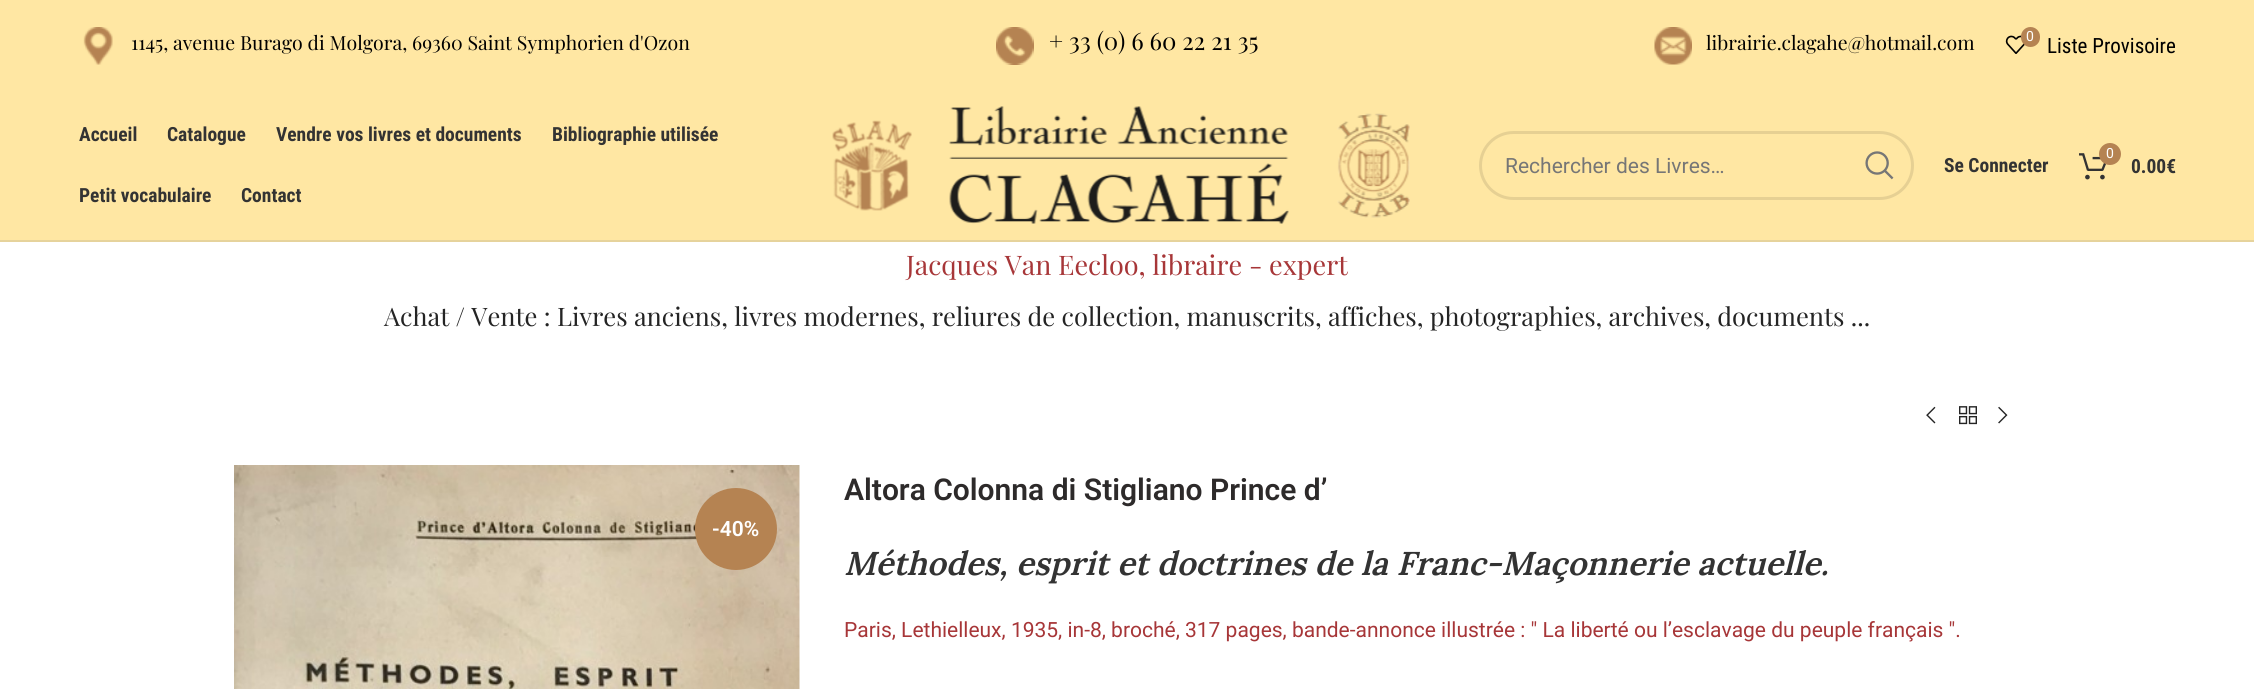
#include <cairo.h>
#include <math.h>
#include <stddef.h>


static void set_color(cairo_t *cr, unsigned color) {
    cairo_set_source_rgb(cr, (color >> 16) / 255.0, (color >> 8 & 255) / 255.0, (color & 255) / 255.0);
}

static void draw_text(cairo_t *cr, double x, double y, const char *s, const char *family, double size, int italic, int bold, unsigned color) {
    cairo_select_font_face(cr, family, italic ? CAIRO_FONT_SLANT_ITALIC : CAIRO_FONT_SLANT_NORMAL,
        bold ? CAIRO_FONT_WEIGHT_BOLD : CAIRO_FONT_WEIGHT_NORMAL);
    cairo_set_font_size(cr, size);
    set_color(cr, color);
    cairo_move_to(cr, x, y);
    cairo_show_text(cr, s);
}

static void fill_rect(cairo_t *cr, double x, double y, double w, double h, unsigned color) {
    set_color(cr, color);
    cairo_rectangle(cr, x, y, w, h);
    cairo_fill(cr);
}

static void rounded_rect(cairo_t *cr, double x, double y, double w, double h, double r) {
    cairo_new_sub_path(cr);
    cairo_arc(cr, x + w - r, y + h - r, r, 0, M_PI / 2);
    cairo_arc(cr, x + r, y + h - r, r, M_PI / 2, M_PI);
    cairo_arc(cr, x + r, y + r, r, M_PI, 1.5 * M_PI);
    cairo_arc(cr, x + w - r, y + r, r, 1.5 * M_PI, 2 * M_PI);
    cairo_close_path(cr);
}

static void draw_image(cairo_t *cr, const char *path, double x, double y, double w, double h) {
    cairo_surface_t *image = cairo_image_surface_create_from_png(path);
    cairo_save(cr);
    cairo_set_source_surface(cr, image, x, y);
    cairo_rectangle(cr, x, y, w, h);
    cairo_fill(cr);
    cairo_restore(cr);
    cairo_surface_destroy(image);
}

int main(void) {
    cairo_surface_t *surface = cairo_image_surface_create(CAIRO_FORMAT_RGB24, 2254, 689);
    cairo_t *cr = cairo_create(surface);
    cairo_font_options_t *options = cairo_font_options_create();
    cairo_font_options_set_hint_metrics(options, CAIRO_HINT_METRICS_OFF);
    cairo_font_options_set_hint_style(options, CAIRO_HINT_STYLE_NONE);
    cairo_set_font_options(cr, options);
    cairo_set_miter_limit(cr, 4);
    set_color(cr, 0xFFFFFF);
    cairo_paint(cr);
    fill_rect(cr, 0, 0, 2254, 240, 0xFFE7A3);
    draw_image(cr, "assets/img1.png", 83, 27, 30, 38);
    draw_text(cr, 131, 50, "1145, avenue Burago di Molgora, 69360 Saint Symphorien d'Ozon", "Playfair Display", 19.5, 0, 0, 0x000000);
    draw_image(cr, "assets/img2.png", 996, 27, 38, 38);
    draw_text(cr, 1049, 50, "+ 33 (0) 6 60 22 21 35", "Playfair Display", 24, 0, 0, 0x000000);
    draw_image(cr, "assets/img3.png", 1654, 27, 38, 38);
    draw_text(cr, 1706, 50, "librairie.clagahe@hotmail.com", "Playfair Display", 19.5, 0, 0, 0x000000);
    draw_image(cr, "assets/img4.png", 2005, 35, 20, 19);
    set_color(cr, 0xB58352);
    rounded_rect(cr, 2021, 27, 19, 20, 9.5);
    cairo_fill(cr);
    draw_text(cr, 2026, 41, "0", "Roboto", 14, 0, 0, 0xFFFFFF);
    draw_text(cr, 2047, 53, "Liste Provisoire", "Roboto Condensed", 21, 0, 0, 0x000000);
    fill_rect(cr, 0, 240, 2254, 2, 0xE6D39C);
    draw_text(cr, 79, 141, "Accueil", "Roboto Condensed", 19.5, 0, 1, 0x333333);
    draw_text(cr, 167, 141, "Catalogue", "Roboto Condensed", 19.5, 0, 1, 0x333333);
    draw_text(cr, 276, 141, "Vendre vos livres et documents", "Roboto Condensed", 19.5, 0, 1, 0x333333);
    draw_text(cr, 552, 141, "Bibliographie utilisée", "Roboto Condensed", 19.5, 0, 1, 0x333333);
    draw_text(cr, 79, 202, "Petit vocabulaire", "Roboto Condensed", 19.5, 0, 1, 0x333333);
    draw_text(cr, 241, 202, "Contact", "Roboto Condensed", 19.5, 0, 1, 0x333333);
    draw_image(cr, "assets/img5.png", 832, 120, 80, 91);
    draw_image(cr, "assets/img6.png", 949, 106, 340, 118);
    draw_image(cr, "assets/img7.png", 1337, 113, 73, 105);
    rounded_rect(cr, 1480.5, 132.5, 432, 66, 33);
    set_color(cr, 0xE6D093);
    cairo_set_line_width(cr, 3);
    cairo_stroke(cr);
    draw_text(cr, 1505, 173, "Rechercher des Livres…", "Roboto", 21, 0, 0, 0x767676);
    draw_image(cr, "assets/img8.png", 1865, 151, 29, 29);
    draw_text(cr, 1944, 172, "Se Connecter", "Roboto Condensed", 19.5, 0, 1, 0x333333);
    draw_image(cr, "assets/img9.png", 2079, 153, 27, 27);
    set_color(cr, 0xB58352);
    cairo_arc(cr, 2110, 154, 11, 0, 2 * M_PI);
    cairo_fill(cr);
    draw_text(cr, 2106, 158, "0", "Roboto", 14, 0, 0, 0xFFFFFF);
    draw_text(cr, 2131, 173, "0.00€", "Roboto Condensed", 19.5, 0, 1, 0x333333);
    draw_text(cr, 906, 275, "Jacques Van Eecloo, libraire - expert", "Playfair Display", 27, 0, 0, 0xA73638);
    draw_text(cr, 384, 326, "Achat / Vente : Livres anciens, livres modernes, reliures de collection, manuscrits, affiches, photographies, archives, documents ...", "Playfair Display", 25.5, 0, 0, 0x242424);
    draw_image(cr, "assets/img10.png", 1926, 406, 10, 18);
    draw_image(cr, "assets/img11.png", 1959, 406, 18, 19);
    draw_image(cr, "assets/img12.png", 1998, 406, 10, 18);
    draw_image(cr, "assets/img13.png", 234, 465, 566, 224);
    set_color(cr, 0xB58352);
    cairo_arc(cr, 736, 529, 41, 0, 2 * M_PI);
    cairo_fill(cr);
    draw_text(cr, 712, 536, "-40%", "Roboto SemiBold", 21, 0, 0, 0xFFFFFF);
    draw_text(cr, 844, 500, "Altora Colonna di Stigliano Prince d’", "Roboto SemiBold", 30, 0, 0, 0x2D2A2A);
    draw_text(cr, 844, 575, "Méthodes, esprit et doctrines de la Franc-Maçonnerie actuelle.", "Lora SemiBold", 33, 1, 0, 0x333333);
    draw_text(cr, 844, 637, "Paris, Lethielleux, 1935, in-8, broché, 317 pages, bande-annonce illustrée : \" La liberté ou l’esclavage du peuple français \".", "Roboto", 21, 0, 0, 0xA73638);
    cairo_surface_write_to_png(surface, "output.png");
    cairo_font_options_destroy(options);
    cairo_destroy(cr);
    cairo_surface_destroy(surface);
    return 0;
}
